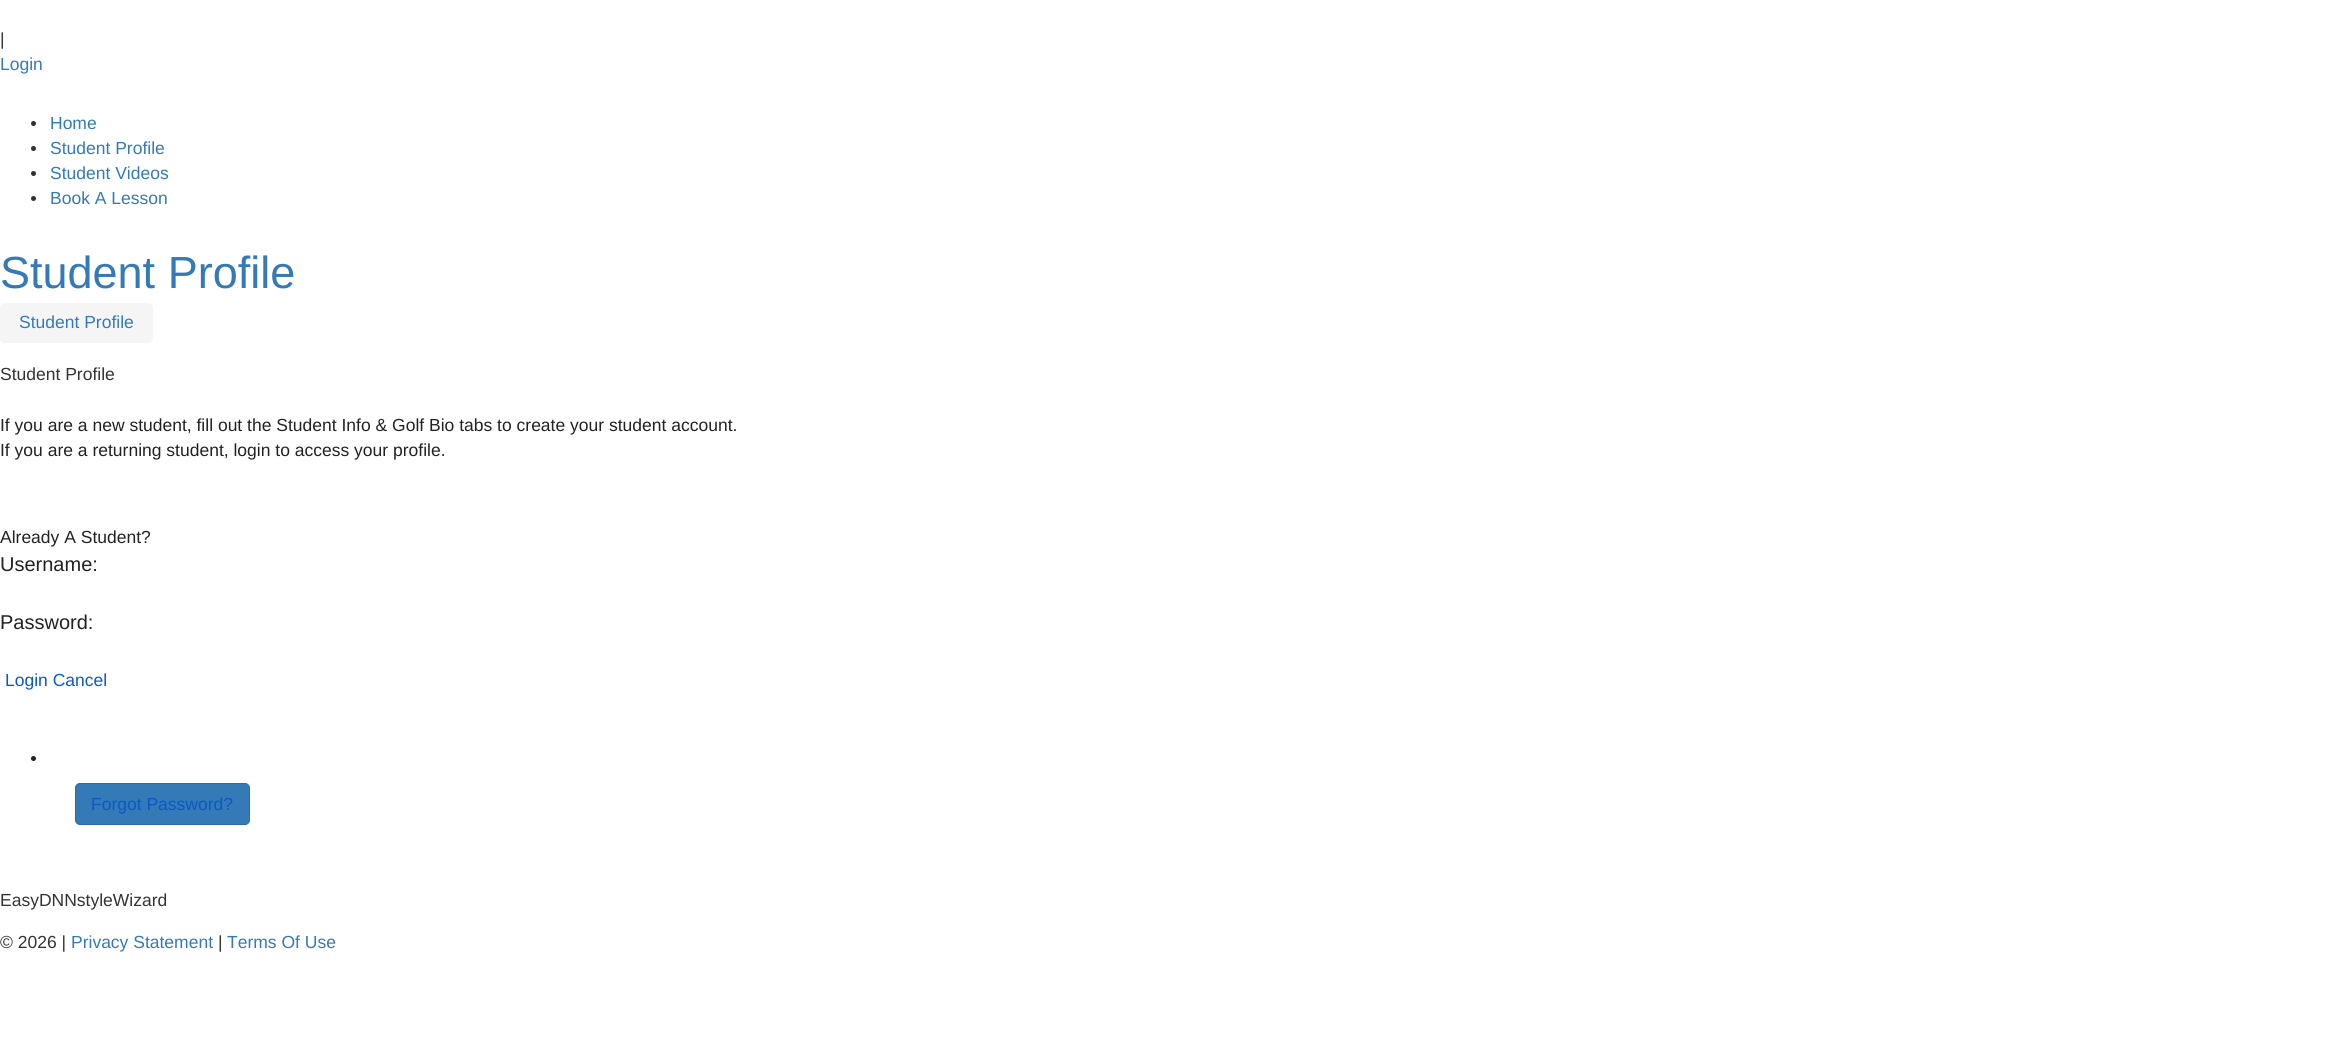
#include <cairo.h>
#include <math.h>
#include <stddef.h>


static void set_color(cairo_t *cr, unsigned color) {
    cairo_set_source_rgb(cr, (color >> 16) / 255.0, (color >> 8 & 255) / 255.0, (color & 255) / 255.0);
}

static void draw_text(cairo_t *cr, double x, double y, const char *s, const char *family, double size, int italic, int bold, unsigned color) {
    cairo_select_font_face(cr, family, italic ? CAIRO_FONT_SLANT_ITALIC : CAIRO_FONT_SLANT_NORMAL,
        bold ? CAIRO_FONT_WEIGHT_BOLD : CAIRO_FONT_WEIGHT_NORMAL);
    cairo_set_font_size(cr, size);
    set_color(cr, color);
    cairo_move_to(cr, x, y);
    cairo_show_text(cr, s);
}

static void rounded_rect(cairo_t *cr, double x, double y, double w, double h, double r) {
    cairo_new_sub_path(cr);
    cairo_arc(cr, x + w - r, y + h - r, r, 0, M_PI / 2);
    cairo_arc(cr, x + r, y + h - r, r, M_PI / 2, M_PI);
    cairo_arc(cr, x + r, y + r, r, M_PI, 1.5 * M_PI);
    cairo_arc(cr, x + w - r, y + r, r, 1.5 * M_PI, 2 * M_PI);
    cairo_close_path(cr);
}

int main(void) {
    cairo_surface_t *surface = cairo_image_surface_create(CAIRO_FORMAT_RGB24, 2339, 1050);
    cairo_t *cr = cairo_create(surface);
    cairo_font_options_t *options = cairo_font_options_create();
    cairo_font_options_set_hint_metrics(options, CAIRO_HINT_METRICS_OFF);
    cairo_font_options_set_hint_style(options, CAIRO_HINT_STYLE_NONE);
    cairo_set_font_options(cr, options);
    cairo_set_miter_limit(cr, 4);
    set_color(cr, 0xFFFFFF);
    cairo_paint(cr);
    draw_text(cr, 0, 45, "|", "Liberation Sans", 17.5, 0, 0, 0x333333);
    draw_text(cr, 0, 70, "Login", "Liberation Sans", 17.5, 0, 0, 0x337AB7);
    set_color(cr, 0x333333);
    cairo_new_path(cr);
    cairo_arc(cr, 33.5, 123.5, 2.5, 0, 2 * M_PI);
    cairo_fill(cr);
    draw_text(cr, 50, 129, "Home", "Liberation Sans", 17.5, 0, 0, 0x337AB7);
    set_color(cr, 0x333333);
    cairo_new_path(cr);
    cairo_arc(cr, 33.5, 148.5, 2.5, 0, 2 * M_PI);
    cairo_fill(cr);
    draw_text(cr, 50, 154, "Student Profile", "Liberation Sans", 17.5, 0, 0, 0x337AB7);
    set_color(cr, 0x333333);
    cairo_new_path(cr);
    cairo_arc(cr, 33.5, 173.5, 2.5, 0, 2 * M_PI);
    cairo_fill(cr);
    draw_text(cr, 50, 179, "Student Videos", "Liberation Sans", 17.5, 0, 0, 0x337AB7);
    set_color(cr, 0x333333);
    cairo_new_path(cr);
    cairo_arc(cr, 33.5, 198.5, 2.5, 0, 2 * M_PI);
    cairo_fill(cr);
    draw_text(cr, 50, 204, "Book A Lesson", "Liberation Sans", 17.5, 0, 0, 0x337AB7);
    draw_text(cr, 0, 288, "Student Profile", "Liberation Sans", 45, 0, 0, 0x337AB7);
    set_color(cr, 0xF5F5F5);
    rounded_rect(cr, 0, 303, 153, 40, 5);
    cairo_fill(cr);
    draw_text(cr, 19, 328, "Student Profile", "Liberation Sans", 17.5, 0, 0, 0x337AB7);
    draw_text(cr, 0, 380, "Student Profile", "Liberation Sans", 17.5, 0, 0, 0x333333);
    draw_text(cr, 0, 431, "If you are a new student, fill out the Student Info & Golf Bio tabs to create your student account.", "Liberation Sans", 17.5, 0, 0, 0x222222);
    draw_text(cr, 0, 456, "If you are a returning student, login to access your profile.", "Liberation Sans", 17.5, 0, 0, 0x222222);
    draw_text(cr, 0, 543, "Already A Student?", "Liberation Sans", 17.5, 0, 0, 0x222222);
    draw_text(cr, 0, 571, "Username:", "Liberation Sans", 20, 0, 0, 0x222222);
    draw_text(cr, 0, 629, "Password:", "Liberation Sans", 20, 0, 0, 0x222222);
    draw_text(cr, 5, 686, "Login Cancel", "Liberation Sans", 17.5, 0, 0, 0x0A58CA);
    set_color(cr, 0x222222);
    cairo_new_path(cr);
    cairo_arc(cr, 33.5, 758.5, 2.5, 0, 2 * M_PI);
    cairo_fill(cr);
    set_color(cr, 0x337AB7);
    rounded_rect(cr, 75.5, 783.5, 174, 41, 4.5);
    cairo_fill_preserve(cr);
    set_color(cr, 0x2E6DA4);
    cairo_set_line_width(cr, 1);
    cairo_stroke(cr);
    draw_text(cr, 91, 810, "Forgot Password?", "Liberation Sans", 17.5, 0, 0, 0x0A58CA);
    draw_text(cr, 0, 906, "EasyDNNstyleWizard", "Liberation Sans", 17.5, 0, 0, 0x333333);
    draw_text(cr, 0, 948, "© 2026 |", "Liberation Sans", 17.5, 0, 0, 0x333333);
    draw_text(cr, 71, 948, "Privacy Statement", "Liberation Sans", 17.5, 0, 0, 0x337AB7);
    draw_text(cr, 218, 948, "|", "Liberation Sans", 17.5, 0, 0, 0x333333);
    draw_text(cr, 227, 948, "Terms Of Use", "Liberation Sans", 17.5, 0, 0, 0x337AB7);
    cairo_surface_write_to_png(surface, "output.png");
    cairo_font_options_destroy(options);
    cairo_destroy(cr);
    cairo_surface_destroy(surface);
    return 0;
}
